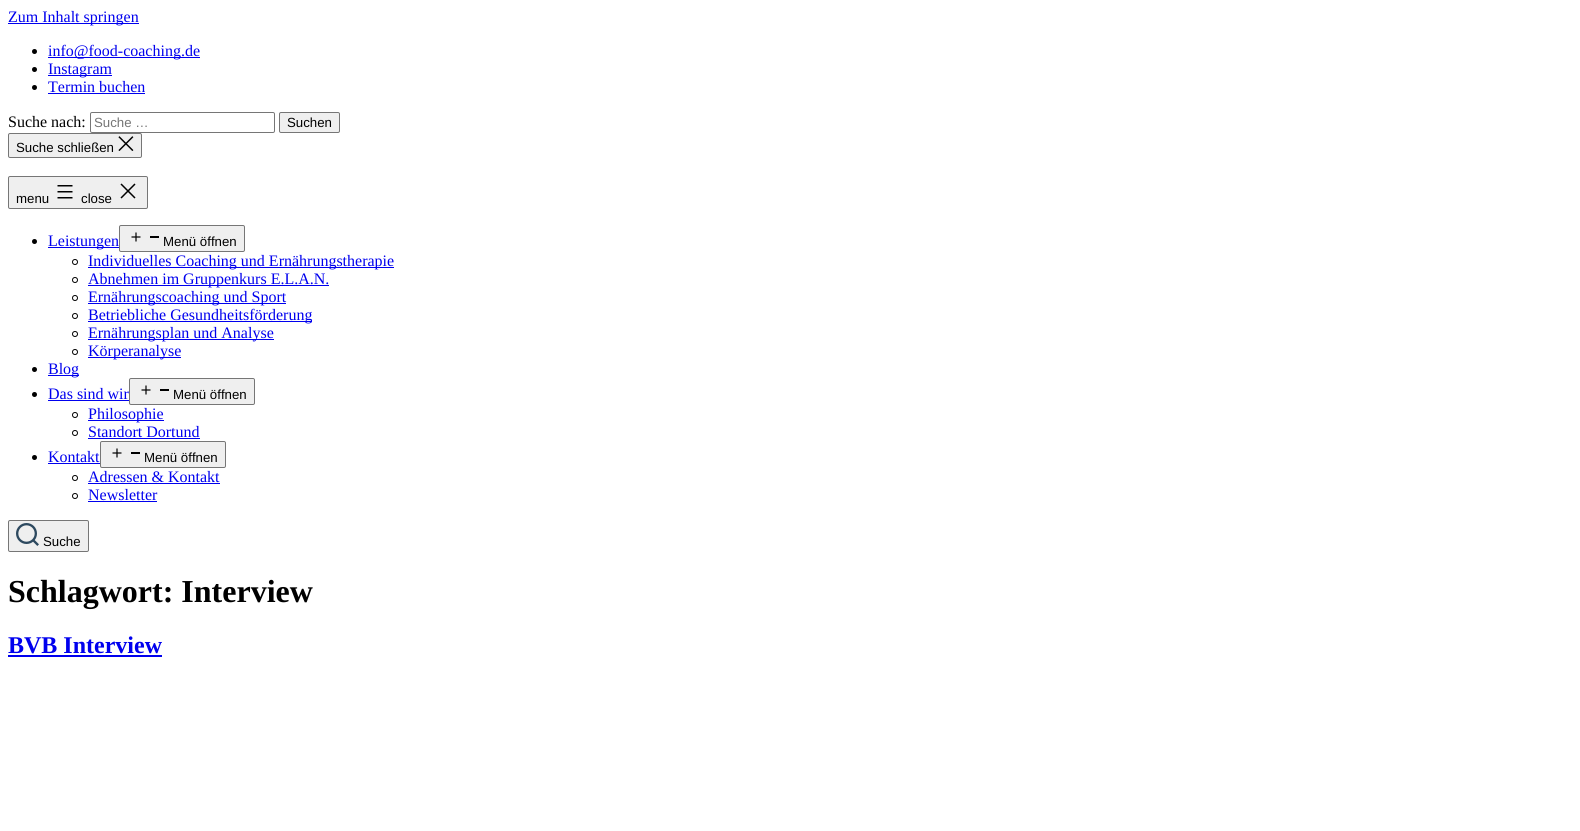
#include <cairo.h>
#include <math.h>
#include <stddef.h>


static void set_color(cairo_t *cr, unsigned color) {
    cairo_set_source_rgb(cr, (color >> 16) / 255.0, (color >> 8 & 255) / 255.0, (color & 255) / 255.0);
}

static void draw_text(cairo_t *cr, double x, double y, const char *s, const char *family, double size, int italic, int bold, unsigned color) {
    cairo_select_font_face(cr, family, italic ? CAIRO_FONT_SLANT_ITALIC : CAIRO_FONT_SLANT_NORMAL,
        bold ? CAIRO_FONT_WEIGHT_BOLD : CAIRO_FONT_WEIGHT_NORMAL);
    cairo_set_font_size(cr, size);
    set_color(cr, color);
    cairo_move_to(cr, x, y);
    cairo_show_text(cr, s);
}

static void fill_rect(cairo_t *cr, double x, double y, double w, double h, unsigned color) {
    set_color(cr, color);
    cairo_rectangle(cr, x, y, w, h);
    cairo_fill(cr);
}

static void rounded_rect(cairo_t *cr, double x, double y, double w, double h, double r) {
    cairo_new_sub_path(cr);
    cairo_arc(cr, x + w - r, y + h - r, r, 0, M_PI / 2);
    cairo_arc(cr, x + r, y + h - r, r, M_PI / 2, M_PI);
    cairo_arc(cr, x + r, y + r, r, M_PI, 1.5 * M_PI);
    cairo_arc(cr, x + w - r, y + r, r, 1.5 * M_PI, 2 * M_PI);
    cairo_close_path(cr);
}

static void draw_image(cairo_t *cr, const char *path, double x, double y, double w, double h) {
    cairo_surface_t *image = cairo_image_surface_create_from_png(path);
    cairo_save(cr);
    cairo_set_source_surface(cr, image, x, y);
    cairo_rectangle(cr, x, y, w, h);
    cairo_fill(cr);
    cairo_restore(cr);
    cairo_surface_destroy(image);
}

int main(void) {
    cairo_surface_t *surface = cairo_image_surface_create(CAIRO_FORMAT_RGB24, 1580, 831);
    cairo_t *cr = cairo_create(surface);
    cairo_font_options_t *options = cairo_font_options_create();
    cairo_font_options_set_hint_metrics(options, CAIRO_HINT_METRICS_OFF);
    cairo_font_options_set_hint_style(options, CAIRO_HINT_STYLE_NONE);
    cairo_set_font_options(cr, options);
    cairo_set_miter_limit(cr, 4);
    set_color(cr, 0xFFFFFF);
    cairo_paint(cr);
    fill_rect(cr, 8, 23, 131, 1, 0x0000EE);
    draw_text(cr, 8, 22, "Zum Inhalt springen", "Liberation Serif", 16, 0, 0, 0x0000EE);
    set_color(cr, 0x000000);
    cairo_new_path(cr);
    cairo_arc(cr, 34.5, 51.5, 2.5, 0, 2 * M_PI);
    cairo_fill(cr);
    fill_rect(cr, 48, 57, 152, 1, 0x0000EE);
    draw_text(cr, 48, 56, "info@food-coaching.de", "Liberation Serif", 16, 0, 0, 0x0000EE);
    set_color(cr, 0x000000);
    cairo_new_path(cr);
    cairo_arc(cr, 34.5, 69.5, 2.5, 0, 2 * M_PI);
    cairo_fill(cr);
    fill_rect(cr, 48, 75, 64, 1, 0x0000EE);
    draw_text(cr, 48, 74, "Instagram", "Liberation Serif", 16, 0, 0, 0x0000EE);
    set_color(cr, 0x000000);
    cairo_new_path(cr);
    cairo_arc(cr, 34.5, 87.5, 2.5, 0, 2 * M_PI);
    cairo_fill(cr);
    draw_text(cr, 48, 92, "Termin buchen", "Liberation Serif", 16, 0, 0, 0x0000EE);
    fill_rect(cr, 48, 93, 97, 1, 0x0000EE);
    draw_text(cr, 8, 127, "Suche nach:", "Liberation Serif", 16, 0, 0, 0x000000);
    rounded_rect(cr, 90.5, 112.5, 184, 20, 1.5);
    set_color(cr, 0x767676);
    cairo_set_line_width(cr, 1);
    cairo_stroke(cr);
    draw_text(cr, 94, 127, "Suche …", "Liberation Sans", 13.25, 0, 0, 0x757575);
    set_color(cr, 0xEFEFEF);
    rounded_rect(cr, 279.5, 112.5, 60, 20, 1.5);
    cairo_fill_preserve(cr);
    set_color(cr, 0x767676);
    cairo_stroke(cr);
    draw_text(cr, 287, 127, "Suchen", "Liberation Sans", 13.25, 0, 0, 0x000000);
    set_color(cr, 0xEFEFEF);
    rounded_rect(cr, 8.5, 133.5, 133, 24, 1.5);
    cairo_fill_preserve(cr);
    set_color(cr, 0x767676);
    cairo_stroke(cr);
    draw_text(cr, 16, 152, "Suche schließen", "Liberation Sans", 13.25, 0, 0, 0x000000);
    draw_image(cr, "assets/img1.png", 118, 136, 16, 15);
    set_color(cr, 0xEFEFEF);
    rounded_rect(cr, 8.5, 176.5, 139, 32, 1.5);
    cairo_fill_preserve(cr);
    set_color(cr, 0x767676);
    cairo_stroke(cr);
    draw_text(cr, 16, 203, "menu", "Liberation Sans", 13.25, 0, 0, 0x000000);
    draw_image(cr, "assets/img2.png", 57, 185, 16, 14);
    draw_text(cr, 81, 203, "close", "Liberation Sans", 13.25, 0, 0, 0x000000);
    draw_image(cr, "assets/img3.png", 120, 183, 16, 16);
    cairo_arc(cr, 34.5, 241.5, 2.5, 0, 2 * M_PI);
    cairo_fill(cr);
    fill_rect(cr, 48, 247, 71, 1, 0x0000EE);
    draw_text(cr, 48, 246, "Leistungen", "Liberation Serif", 16, 0, 0, 0x0000EE);
    set_color(cr, 0xEFEFEF);
    rounded_rect(cr, 119.5, 225.5, 125, 26, 1.5);
    cairo_fill_preserve(cr);
    set_color(cr, 0x767676);
    cairo_stroke(cr);
    draw_image(cr, "assets/img4.png", 131, 232, 10, 10);
    fill_rect(cr, 150, 236, 9, 2, 0x000000);
    draw_text(cr, 163, 246, "Menü öffnen", "Liberation Sans", 13.25, 0, 0, 0x000000);
    cairo_new_path(cr);
    cairo_arc(cr, 75, 262, 2.5, 0, 2 * M_PI);
    cairo_stroke(cr);
    fill_rect(cr, 88, 267, 306, 1, 0x0000EE);
    draw_text(cr, 88, 266, "Individuelles Coaching und Ernährungstherapie", "Liberation Serif", 16, 0, 0, 0x0000EE);
    cairo_new_path(cr);
    cairo_arc(cr, 75, 280, 2.5, 0, 2 * M_PI);
    set_color(cr, 0x000000);
    cairo_stroke(cr);
    fill_rect(cr, 88, 285, 241, 1, 0x0000EE);
    draw_text(cr, 88, 284, "Abnehmen im Gruppenkurs E.L.A.N.", "Liberation Serif", 16, 0, 0, 0x0000EE);
    cairo_new_path(cr);
    cairo_arc(cr, 75, 298, 2.5, 0, 2 * M_PI);
    set_color(cr, 0x000000);
    cairo_stroke(cr);
    fill_rect(cr, 88, 303, 198, 1, 0x0000EE);
    draw_text(cr, 88, 302, "Ernährungscoaching und Sport", "Liberation Serif", 16, 0, 0, 0x0000EE);
    cairo_new_path(cr);
    cairo_arc(cr, 75, 316, 2.5, 0, 2 * M_PI);
    set_color(cr, 0x000000);
    cairo_stroke(cr);
    fill_rect(cr, 88, 321, 224, 1, 0x0000EE);
    draw_text(cr, 88, 320, "Betriebliche Gesundheitsförderung", "Liberation Serif", 16, 0, 0, 0x0000EE);
    cairo_new_path(cr);
    cairo_arc(cr, 75, 334, 2.5, 0, 2 * M_PI);
    set_color(cr, 0x000000);
    cairo_stroke(cr);
    fill_rect(cr, 88, 339, 186, 1, 0x0000EE);
    draw_text(cr, 88, 338, "Ernährungsplan und Analyse", "Liberation Serif", 16, 0, 0, 0x0000EE);
    cairo_new_path(cr);
    cairo_arc(cr, 75, 352, 2.5, 0, 2 * M_PI);
    set_color(cr, 0x000000);
    cairo_stroke(cr);
    fill_rect(cr, 88, 357, 93, 1, 0x0000EE);
    draw_text(cr, 88, 356, "Körperanalyse", "Liberation Serif", 16, 0, 0, 0x0000EE);
    set_color(cr, 0x000000);
    cairo_new_path(cr);
    cairo_arc(cr, 34.5, 369.5, 2.5, 0, 2 * M_PI);
    cairo_fill(cr);
    fill_rect(cr, 48, 375, 31, 1, 0x0000EE);
    draw_text(cr, 48, 374, "Blog", "Liberation Serif", 16, 0, 0, 0x0000EE);
    set_color(cr, 0x000000);
    cairo_new_path(cr);
    cairo_arc(cr, 34.5, 394.5, 2.5, 0, 2 * M_PI);
    cairo_fill(cr);
    draw_text(cr, 48, 399, "Das sind wir", "Liberation Serif", 16, 0, 0, 0x0000EE);
    fill_rect(cr, 48, 400, 81, 1, 0x0000EE);
    set_color(cr, 0xEFEFEF);
    rounded_rect(cr, 129.5, 378.5, 125, 26, 1.5);
    cairo_fill_preserve(cr);
    set_color(cr, 0x767676);
    cairo_stroke(cr);
    draw_image(cr, "assets/img4.png", 141, 385, 10, 10);
    fill_rect(cr, 160, 389, 9, 2, 0x000000);
    draw_text(cr, 173, 399, "Menü öffnen", "Liberation Sans", 13.25, 0, 0, 0x000000);
    cairo_new_path(cr);
    cairo_arc(cr, 75, 415, 2.5, 0, 2 * M_PI);
    cairo_stroke(cr);
    fill_rect(cr, 88, 420, 76, 1, 0x0000EE);
    draw_text(cr, 88, 419, "Philosophie", "Liberation Serif", 16, 0, 0, 0x0000EE);
    cairo_new_path(cr);
    cairo_arc(cr, 75, 433, 2.5, 0, 2 * M_PI);
    set_color(cr, 0x000000);
    cairo_stroke(cr);
    draw_text(cr, 88, 437, "Standort Dortund", "Liberation Serif", 16, 0, 0, 0x0000EE);
    fill_rect(cr, 88, 438, 112, 1, 0x0000EE);
    set_color(cr, 0x000000);
    cairo_new_path(cr);
    cairo_arc(cr, 34.5, 457.5, 2.5, 0, 2 * M_PI);
    cairo_fill(cr);
    draw_text(cr, 48, 462, "Kontakt", "Liberation Serif", 16, 0, 0, 0x0000EE);
    fill_rect(cr, 48, 463, 52, 1, 0x0000EE);
    set_color(cr, 0xEFEFEF);
    rounded_rect(cr, 100.5, 441.5, 125, 26, 1.5);
    cairo_fill_preserve(cr);
    set_color(cr, 0x767676);
    cairo_stroke(cr);
    draw_image(cr, "assets/img4.png", 112, 448, 10, 10);
    fill_rect(cr, 131, 452, 9, 2, 0x000000);
    draw_text(cr, 144, 462, "Menü öffnen", "Liberation Sans", 13.25, 0, 0, 0x000000);
    cairo_new_path(cr);
    cairo_arc(cr, 75, 478, 2.5, 0, 2 * M_PI);
    cairo_stroke(cr);
    draw_text(cr, 88, 482, "Adressen & Kontakt", "Liberation Serif", 16, 0, 0, 0x0000EE);
    fill_rect(cr, 88, 483, 132, 1, 0x0000EE);
    cairo_new_path(cr);
    cairo_arc(cr, 75, 496, 2.5, 0, 2 * M_PI);
    set_color(cr, 0x000000);
    cairo_stroke(cr);
    draw_text(cr, 88, 500, "Newsletter", "Liberation Serif", 16, 0, 0, 0x0000EE);
    fill_rect(cr, 88, 501, 69, 1, 0x0000EE);
    set_color(cr, 0xEFEFEF);
    rounded_rect(cr, 8.5, 520.5, 80, 31, 1.5);
    cairo_fill_preserve(cr);
    set_color(cr, 0x767676);
    cairo_stroke(cr);
    draw_image(cr, "assets/img5.png", 16, 523, 23, 23);
    draw_text(cr, 43, 546, "Suche", "Liberation Sans", 13.25, 0, 0, 0x000000);
    draw_text(cr, 8, 602, "Schlagwort: Interview", "Liberation Serif", 32, 0, 1, 0x000000);
    draw_text(cr, 8, 653, "BVB Interview", "Liberation Serif", 24, 0, 1, 0x0000EE);
    fill_rect(cr, 8, 655, 154, 2, 0x0000EE);
    cairo_surface_write_to_png(surface, "output.png");
    cairo_font_options_destroy(options);
    cairo_destroy(cr);
    cairo_surface_destroy(surface);
    return 0;
}
